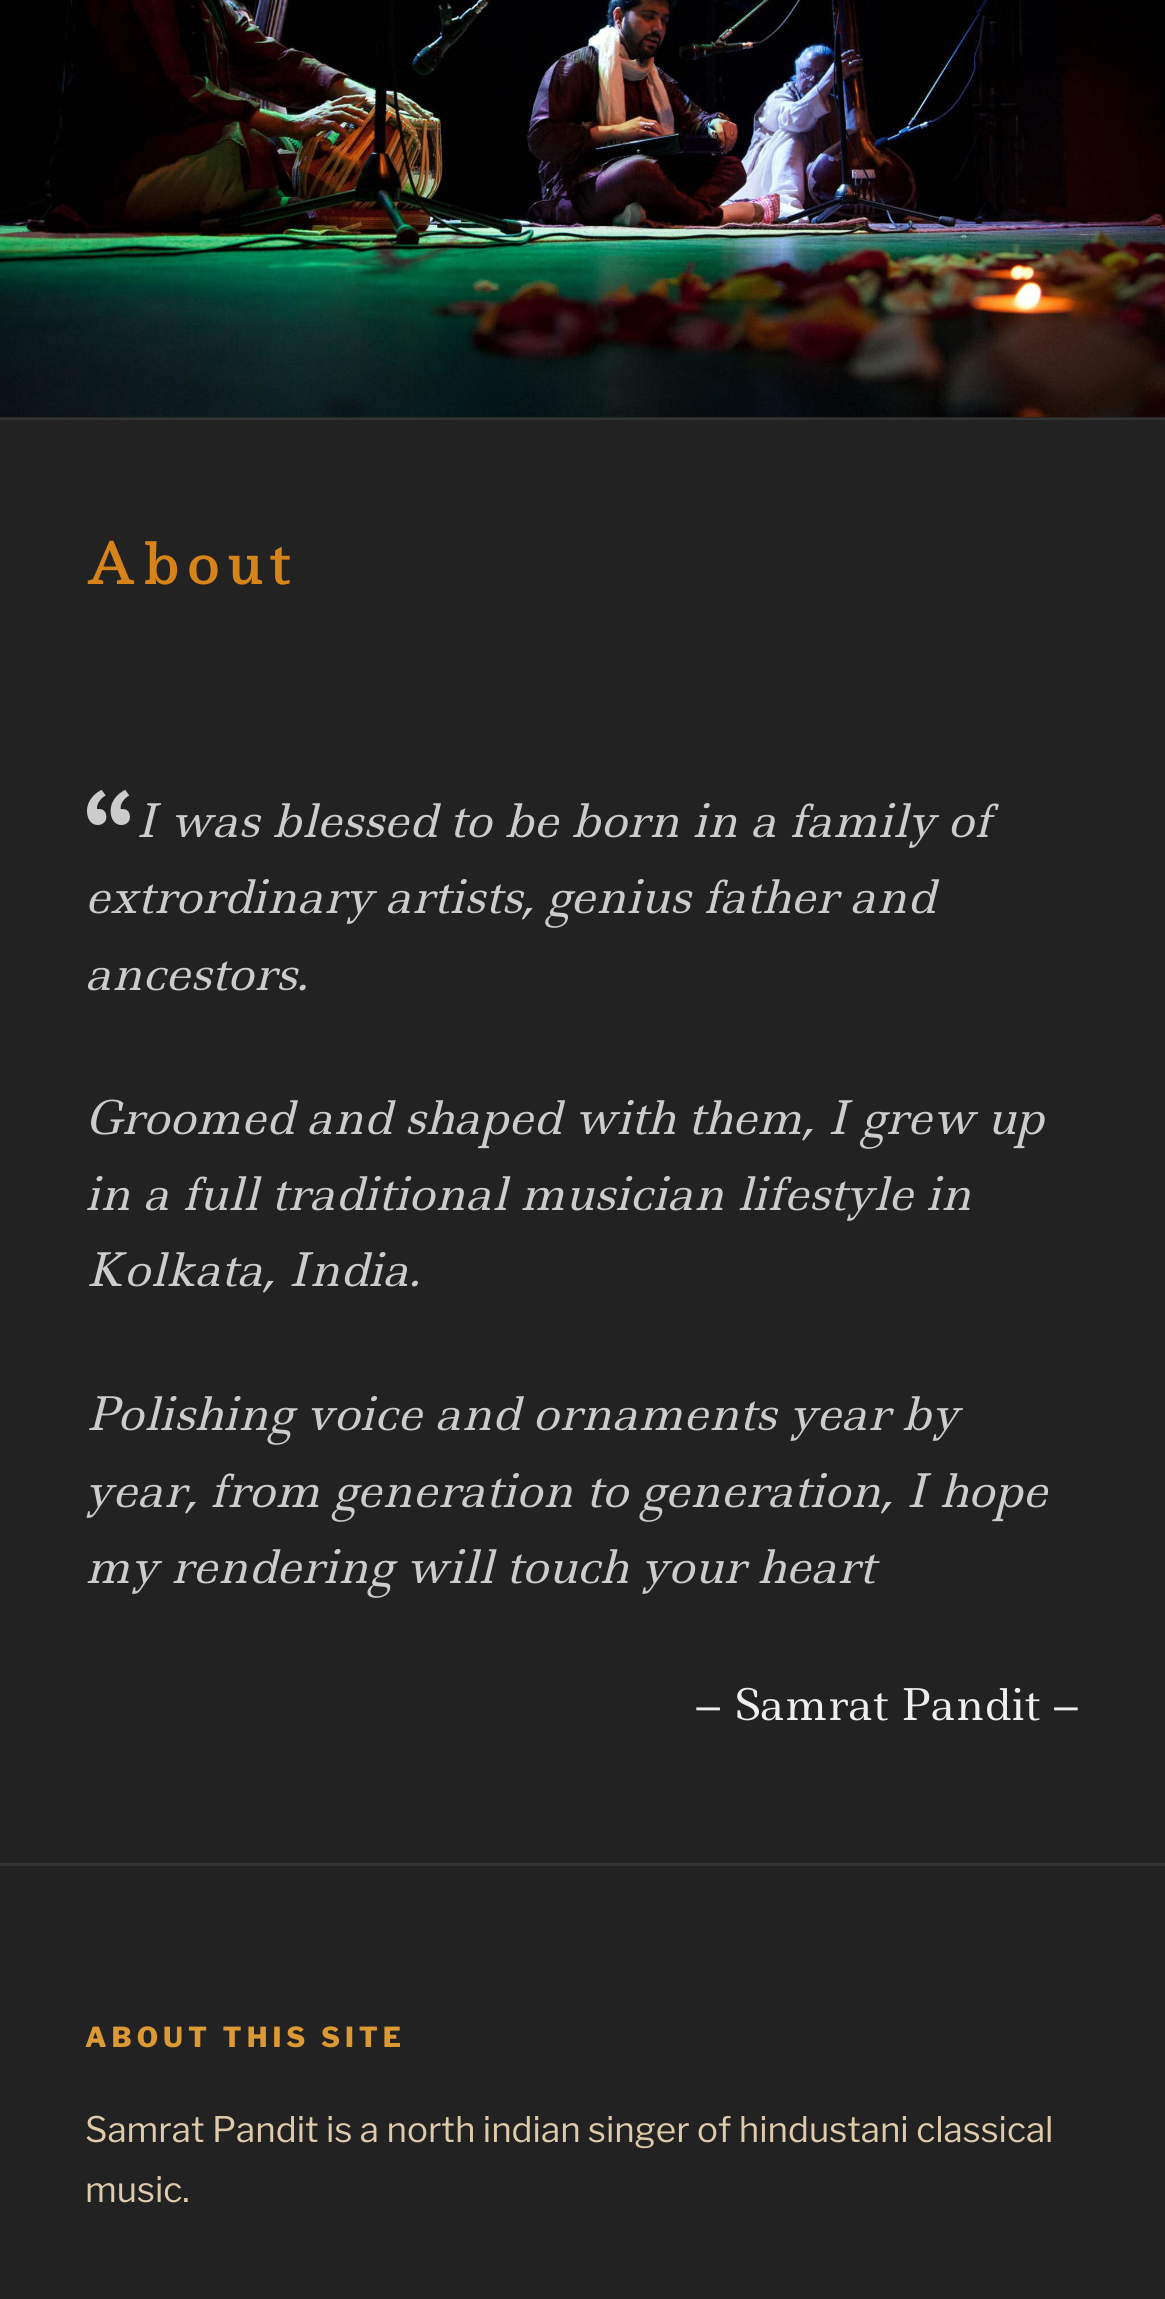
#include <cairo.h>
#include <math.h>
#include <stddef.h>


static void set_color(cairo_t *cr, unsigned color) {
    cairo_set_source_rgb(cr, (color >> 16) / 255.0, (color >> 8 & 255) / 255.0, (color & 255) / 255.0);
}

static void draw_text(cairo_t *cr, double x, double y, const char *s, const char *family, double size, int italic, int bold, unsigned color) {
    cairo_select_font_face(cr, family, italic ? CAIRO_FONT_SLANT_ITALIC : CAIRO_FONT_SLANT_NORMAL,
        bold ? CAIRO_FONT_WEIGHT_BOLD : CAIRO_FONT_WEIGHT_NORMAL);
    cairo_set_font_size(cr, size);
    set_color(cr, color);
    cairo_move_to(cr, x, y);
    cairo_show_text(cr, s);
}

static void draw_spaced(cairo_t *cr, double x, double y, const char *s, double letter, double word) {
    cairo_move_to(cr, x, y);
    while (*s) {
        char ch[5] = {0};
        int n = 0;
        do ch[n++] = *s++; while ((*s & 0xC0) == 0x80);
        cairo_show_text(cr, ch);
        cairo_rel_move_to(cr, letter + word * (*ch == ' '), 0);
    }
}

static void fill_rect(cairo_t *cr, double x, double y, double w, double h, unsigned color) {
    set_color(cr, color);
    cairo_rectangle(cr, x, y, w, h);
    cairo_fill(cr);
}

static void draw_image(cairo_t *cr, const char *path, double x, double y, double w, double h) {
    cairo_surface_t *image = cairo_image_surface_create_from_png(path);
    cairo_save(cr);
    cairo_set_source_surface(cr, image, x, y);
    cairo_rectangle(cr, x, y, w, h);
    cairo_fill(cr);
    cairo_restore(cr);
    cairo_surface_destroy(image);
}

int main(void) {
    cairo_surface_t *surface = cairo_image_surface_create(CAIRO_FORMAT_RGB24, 1165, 2299);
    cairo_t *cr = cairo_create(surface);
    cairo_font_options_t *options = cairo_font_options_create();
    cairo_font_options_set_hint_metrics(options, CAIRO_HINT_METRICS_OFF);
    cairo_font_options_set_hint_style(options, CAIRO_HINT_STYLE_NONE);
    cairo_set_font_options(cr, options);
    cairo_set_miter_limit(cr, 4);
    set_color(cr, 0x262626);
    cairo_paint(cr);
    fill_rect(cr, 0, 418, 1165, 2, 0x333333);
    draw_image(cr, "assets/img1.png", 0, 0, 1165, 417);
    fill_rect(cr, 0, 420, 1165, 1879, 0x222222);
    cairo_select_font_face(cr, "Ledger", CAIRO_FONT_SLANT_NORMAL, CAIRO_FONT_WEIGHT_BOLD);
    cairo_set_font_size(cr, 55);
    set_color(cr, 0xD68419);
    draw_spaced(cr, 85, 584, "About", 7.75, 0);
    draw_image(cr, "assets/img2.png", 87, 789, 43, 36);
    draw_text(cr, 135, 837, "I was blessed to be born in a family of", "Ledger", 45, 1, 0, 0xCCCCCC);
    draw_text(cr, 85, 913, "extrordinary artists, genius father and", "Ledger", 45, 1, 0, 0xCCCCCC);
    draw_text(cr, 85, 990, "ancestors.", "Ledger", 45, 1, 0, 0xCCCCCC);
    draw_text(cr, 85, 1134, "Groomed and shaped with them, I grew up", "Ledger", 45, 1, 0, 0xCCCCCC);
    draw_text(cr, 85, 1210, "in a full traditional musician lifestyle in", "Ledger", 45, 1, 0, 0xCCCCCC);
    draw_text(cr, 85, 1286, "Kolkata, India.", "Ledger", 45, 1, 0, 0xCCCCCC);
    draw_text(cr, 85, 1430, "Polishing voice and ornaments year by", "Ledger", 45, 1, 0, 0xCCCCCC);
    draw_text(cr, 85, 1507, "year, from generation to generation, I hope", "Ledger", 45, 1, 0, 0xCCCCCC);
    draw_text(cr, 85, 1583, "my rendering will touch your heart", "Ledger", 45, 1, 0, 0xCCCCCC);
    draw_text(cr, 694, 1720, "– Samrat Pandit –", "Ledger", 42.5, 0, 0, 0xEEEEEE);
    fill_rect(cr, 0, 1863, 1165, 3, 0x333333);
    cairo_select_font_face(cr, "Libre Franklin ExtraBold", CAIRO_FONT_SLANT_NORMAL, CAIRO_FONT_WEIGHT_NORMAL);
    cairo_set_font_size(cr, 27.5);
    set_color(cr, 0xDD9933);
    draw_spaced(cr, 85, 2047, "ABOUT THIS SITE", 5, 0);
    draw_text(cr, 85, 2142, "Samrat Pandit is a north indian singer of hindustani classical", "Libre Franklin", 35, 0, 0, 0xDDCBAA);
    draw_text(cr, 85, 2202, "music.", "Libre Franklin", 35, 0, 0, 0xDDCBAA);
    cairo_surface_write_to_png(surface, "output.png");
    cairo_font_options_destroy(options);
    cairo_destroy(cr);
    cairo_surface_destroy(surface);
    return 0;
}
